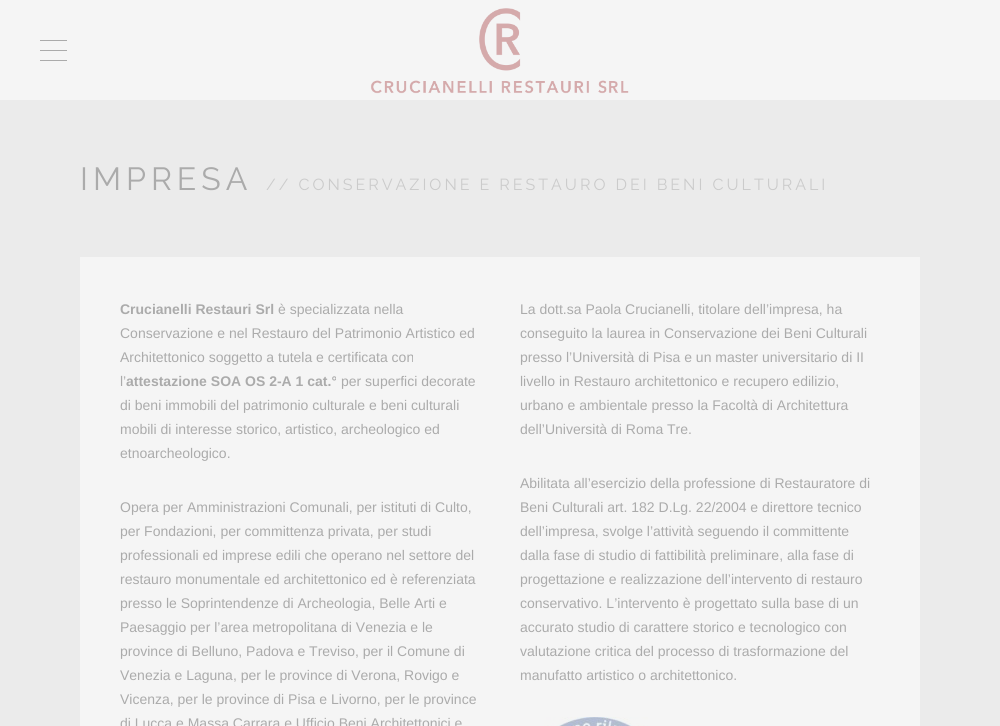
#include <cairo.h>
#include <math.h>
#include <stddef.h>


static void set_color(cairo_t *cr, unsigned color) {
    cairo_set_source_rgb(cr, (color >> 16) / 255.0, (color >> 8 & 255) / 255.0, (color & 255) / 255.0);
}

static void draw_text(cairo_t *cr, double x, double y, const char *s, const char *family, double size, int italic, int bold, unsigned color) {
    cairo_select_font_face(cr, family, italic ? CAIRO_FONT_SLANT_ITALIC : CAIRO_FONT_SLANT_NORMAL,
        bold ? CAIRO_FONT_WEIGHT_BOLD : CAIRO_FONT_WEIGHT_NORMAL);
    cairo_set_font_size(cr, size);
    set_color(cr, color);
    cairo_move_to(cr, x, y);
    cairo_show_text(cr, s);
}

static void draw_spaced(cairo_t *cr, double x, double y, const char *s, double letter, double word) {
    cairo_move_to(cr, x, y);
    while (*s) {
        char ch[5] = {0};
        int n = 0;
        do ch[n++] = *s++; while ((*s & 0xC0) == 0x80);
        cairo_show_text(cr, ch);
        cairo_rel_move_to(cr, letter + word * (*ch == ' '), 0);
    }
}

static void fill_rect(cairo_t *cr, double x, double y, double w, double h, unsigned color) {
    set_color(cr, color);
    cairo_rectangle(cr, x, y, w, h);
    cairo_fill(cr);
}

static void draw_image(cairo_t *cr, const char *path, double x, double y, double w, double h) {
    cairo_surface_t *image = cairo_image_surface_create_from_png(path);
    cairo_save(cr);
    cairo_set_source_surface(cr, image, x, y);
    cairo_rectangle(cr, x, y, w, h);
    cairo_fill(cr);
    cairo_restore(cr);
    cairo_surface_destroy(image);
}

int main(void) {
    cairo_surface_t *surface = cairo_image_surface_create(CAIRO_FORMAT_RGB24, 1000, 726);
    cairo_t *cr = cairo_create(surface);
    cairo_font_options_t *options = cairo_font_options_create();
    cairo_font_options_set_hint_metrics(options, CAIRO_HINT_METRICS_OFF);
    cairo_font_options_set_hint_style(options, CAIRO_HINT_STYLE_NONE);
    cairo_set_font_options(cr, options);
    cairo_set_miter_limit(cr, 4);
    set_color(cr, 0xEBEBEB);
    cairo_paint(cr);
    fill_rect(cr, 0, 0, 1000, 100, 0xF5F5F5);
    fill_rect(cr, 40, 60, 27, 1, 0xABABAB);
    fill_rect(cr, 40, 40, 27, 1, 0xABABAB);
    fill_rect(cr, 40, 50, 27, 1, 0xABABAB);
    draw_image(cr, "assets/img1.png", 370, 8, 259, 86);
    cairo_select_font_face(cr, "Raleway", CAIRO_FONT_SLANT_NORMAL, CAIRO_FONT_WEIGHT_NORMAL);
    cairo_set_font_size(cr, 32);
    draw_spaced(cr, 80, 190, "IMPRESA", 5, 0);
    cairo_set_font_size(cr, 16);
    set_color(cr, 0xCBCBCB);
    draw_spaced(cr, 266, 190, "// CONSERVAZIONE E RESTAURO DEI BENI CULTURALI", 3, 0);
    fill_rect(cr, 80, 257, 840, 469, 0xF5F5F5);
    draw_text(cr, 120, 314, "Crucianelli Restauri Srl", "Liberation Sans", 14, 0, 1, 0xABABAB);
    draw_text(cr, 278, 314, "è specializzata nella", "Liberation Sans", 14, 0, 0, 0xABABAB);
    draw_text(cr, 120, 338, "Conservazione e nel Restauro del Patrimonio Artistico ed", "Liberation Sans", 14, 0, 0, 0xABABAB);
    draw_text(cr, 120, 362, "Architettonico soggetto a tutela e certificata con", "Liberation Sans", 14, 0, 0, 0xABABAB);
    draw_text(cr, 120, 386, "l’", "Liberation Sans", 14, 0, 0, 0xABABAB);
    draw_text(cr, 126, 386, "attestazione SOA OS 2-A 1 cat.°", "Liberation Sans", 14, 0, 1, 0xABABAB);
    draw_text(cr, 341, 386, "per superfici decorate", "Liberation Sans", 14, 0, 0, 0xABABAB);
    draw_text(cr, 120, 410, "di beni immobili del patrimonio culturale e beni culturali", "Liberation Sans", 14, 0, 0, 0xABABAB);
    draw_text(cr, 120, 434, "mobili di interesse storico, artistico, archeologico ed", "Liberation Sans", 14, 0, 0, 0xABABAB);
    draw_text(cr, 120, 458, "etnoarcheologico.", "Liberation Sans", 14, 0, 0, 0xABABAB);
    draw_text(cr, 120, 512, "Opera per Amministrazioni Comunali, per istituti di Culto,", "Liberation Sans", 14, 0, 0, 0xABABAB);
    draw_text(cr, 120, 536, "per Fondazioni, per committenza privata, per studi", "Liberation Sans", 14, 0, 0, 0xABABAB);
    draw_text(cr, 120, 560, "professionali ed imprese edili che operano nel settore del", "Liberation Sans", 14, 0, 0, 0xABABAB);
    draw_text(cr, 120, 584, "restauro monumentale ed architettonico ed è referenziata", "Liberation Sans", 14, 0, 0, 0xABABAB);
    draw_text(cr, 120, 608, "presso le Soprintendenze di Archeologia, Belle Arti e", "Liberation Sans", 14, 0, 0, 0xABABAB);
    draw_text(cr, 120, 632, "Paesaggio per l’area metropolitana di Venezia e le", "Liberation Sans", 14, 0, 0, 0xABABAB);
    draw_text(cr, 120, 656, "province di Belluno, Padova e Treviso, per il Comune di", "Liberation Sans", 14, 0, 0, 0xABABAB);
    draw_text(cr, 120, 680, "Venezia e Laguna, per le province di Verona, Rovigo e", "Liberation Sans", 14, 0, 0, 0xABABAB);
    draw_text(cr, 120, 704, "Vicenza, per le province di Pisa e Livorno, per le province", "Liberation Sans", 14, 0, 0, 0xABABAB);
    draw_text(cr, 120, 728, "di Lucca e Massa Carrara e Ufficio Beni Architettonici e", "Liberation Sans", 14, 0, 0, 0xABABAB);
    draw_text(cr, 520, 314, "La dott.sa Paola Crucianelli, titolare dell’impresa, ha", "Liberation Sans", 14, 0, 0, 0xABABAB);
    draw_text(cr, 520, 338, "conseguito la laurea in Conservazione dei Beni Culturali", "Liberation Sans", 14, 0, 0, 0xABABAB);
    draw_text(cr, 520, 362, "presso l’Università di Pisa e un master universitario di II", "Liberation Sans", 14, 0, 0, 0xABABAB);
    draw_text(cr, 520, 386, "livello in Restauro architettonico e recupero edilizio,", "Liberation Sans", 14, 0, 0, 0xABABAB);
    draw_text(cr, 520, 410, "urbano e ambientale presso la Facoltà di Architettura", "Liberation Sans", 14, 0, 0, 0xABABAB);
    draw_text(cr, 520, 434, "dell’Università di Roma Tre.", "Liberation Sans", 14, 0, 0, 0xABABAB);
    draw_text(cr, 520, 488, "Abilitata all’esercizio della professione di Restauratore di", "Liberation Sans", 14, 0, 0, 0xABABAB);
    draw_text(cr, 520, 512, "Beni Culturali art. 182 D.Lg. 22/2004 e direttore tecnico", "Liberation Sans", 14, 0, 0, 0xABABAB);
    draw_text(cr, 520, 536, "dell’impresa, svolge l’attività seguendo il committente", "Liberation Sans", 14, 0, 0, 0xABABAB);
    draw_text(cr, 520, 560, "dalla fase di studio di fattibilità preliminare, alla fase di", "Liberation Sans", 14, 0, 0, 0xABABAB);
    draw_text(cr, 520, 584, "progettazione e realizzazione dell’intervento di restauro", "Liberation Sans", 14, 0, 0, 0xABABAB);
    draw_text(cr, 520, 608, "conservativo. L’intervento è progettato sulla base di un", "Liberation Sans", 14, 0, 0, 0xABABAB);
    draw_text(cr, 520, 632, "accurato studio di carattere storico e tecnologico con", "Liberation Sans", 14, 0, 0, 0xABABAB);
    draw_text(cr, 520, 656, "valutazione critica del processo di trasformazione del", "Liberation Sans", 14, 0, 0, 0xABABAB);
    draw_text(cr, 520, 680, "manufatto artistico o architettonico.", "Liberation Sans", 14, 0, 0, 0xABABAB);
    draw_image(cr, "assets/img2.png", 544, 717, 104, 9);
    cairo_surface_write_to_png(surface, "output.png");
    cairo_font_options_destroy(options);
    cairo_destroy(cr);
    cairo_surface_destroy(surface);
    return 0;
}
